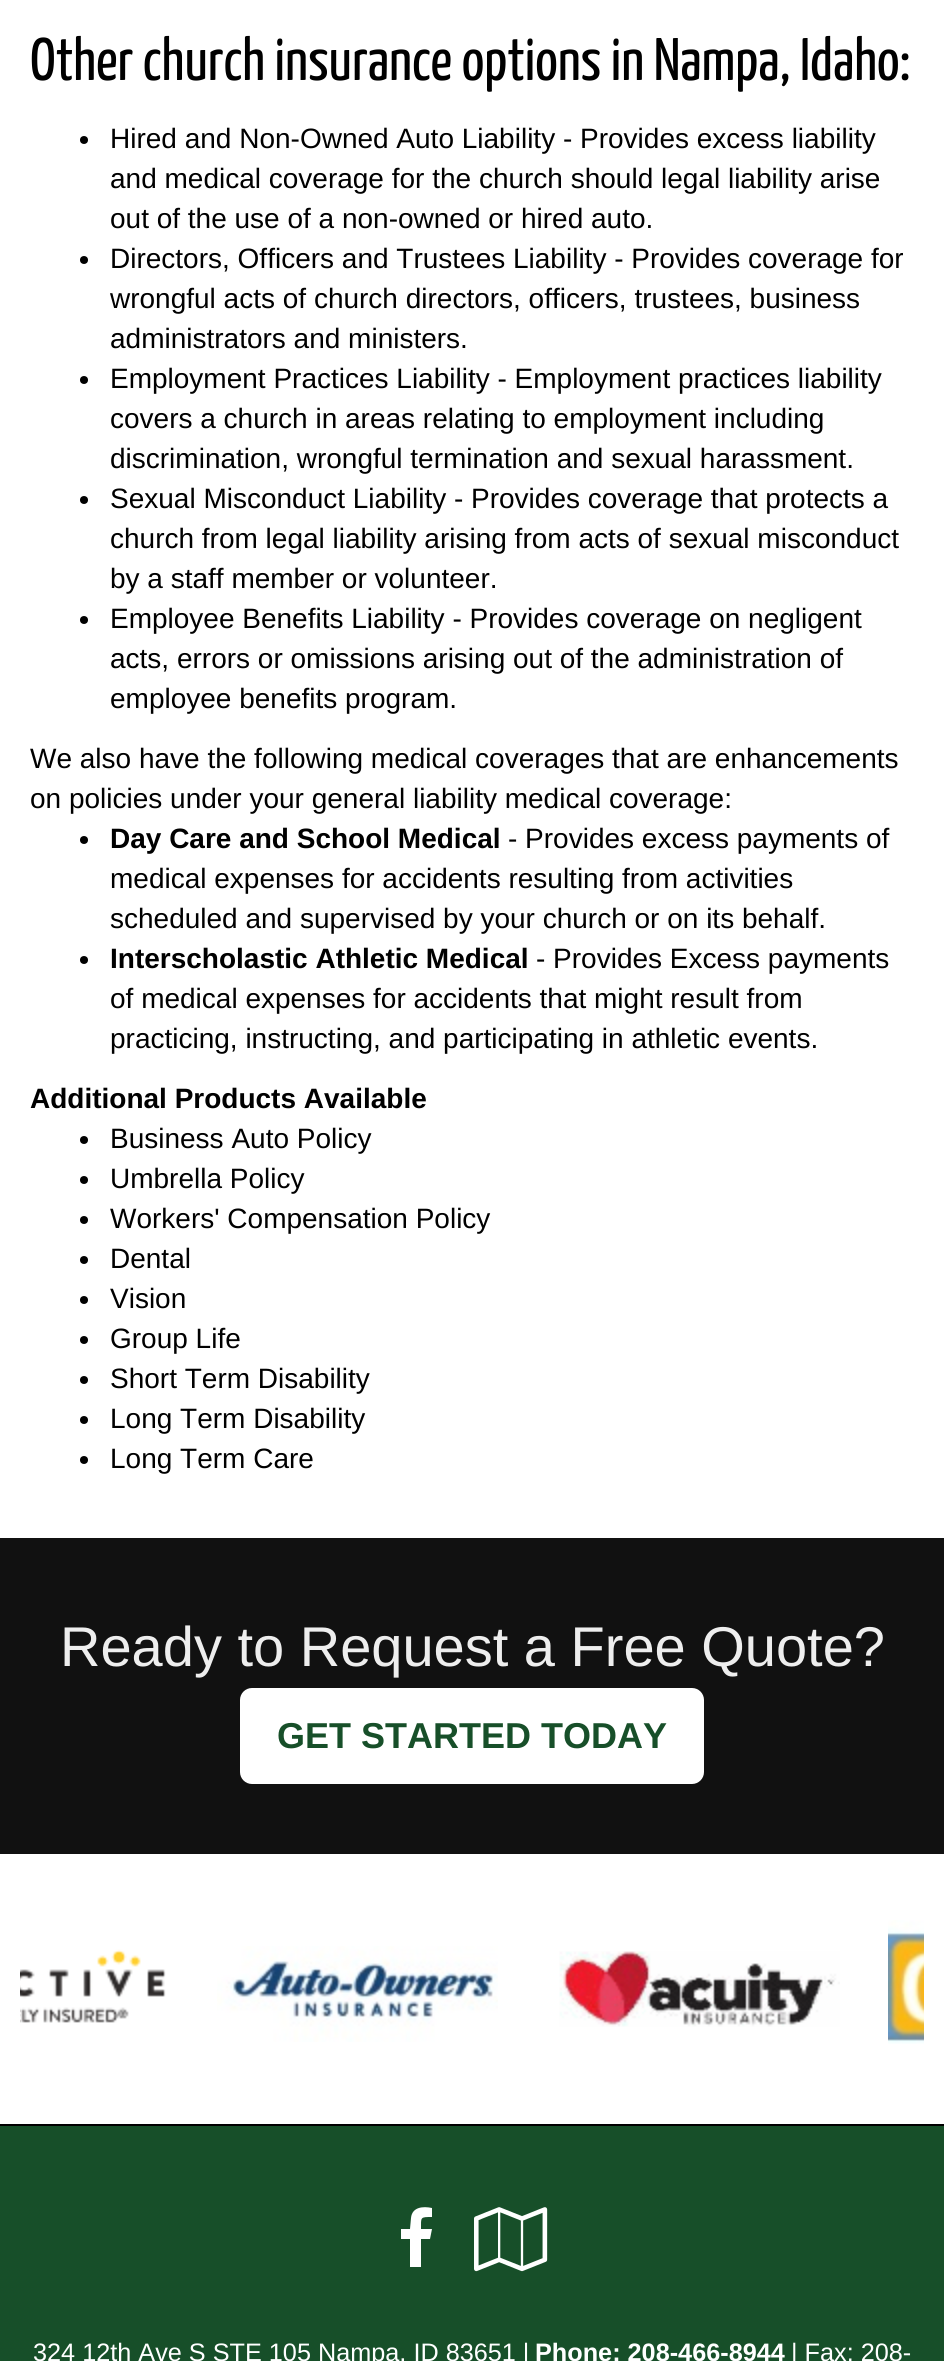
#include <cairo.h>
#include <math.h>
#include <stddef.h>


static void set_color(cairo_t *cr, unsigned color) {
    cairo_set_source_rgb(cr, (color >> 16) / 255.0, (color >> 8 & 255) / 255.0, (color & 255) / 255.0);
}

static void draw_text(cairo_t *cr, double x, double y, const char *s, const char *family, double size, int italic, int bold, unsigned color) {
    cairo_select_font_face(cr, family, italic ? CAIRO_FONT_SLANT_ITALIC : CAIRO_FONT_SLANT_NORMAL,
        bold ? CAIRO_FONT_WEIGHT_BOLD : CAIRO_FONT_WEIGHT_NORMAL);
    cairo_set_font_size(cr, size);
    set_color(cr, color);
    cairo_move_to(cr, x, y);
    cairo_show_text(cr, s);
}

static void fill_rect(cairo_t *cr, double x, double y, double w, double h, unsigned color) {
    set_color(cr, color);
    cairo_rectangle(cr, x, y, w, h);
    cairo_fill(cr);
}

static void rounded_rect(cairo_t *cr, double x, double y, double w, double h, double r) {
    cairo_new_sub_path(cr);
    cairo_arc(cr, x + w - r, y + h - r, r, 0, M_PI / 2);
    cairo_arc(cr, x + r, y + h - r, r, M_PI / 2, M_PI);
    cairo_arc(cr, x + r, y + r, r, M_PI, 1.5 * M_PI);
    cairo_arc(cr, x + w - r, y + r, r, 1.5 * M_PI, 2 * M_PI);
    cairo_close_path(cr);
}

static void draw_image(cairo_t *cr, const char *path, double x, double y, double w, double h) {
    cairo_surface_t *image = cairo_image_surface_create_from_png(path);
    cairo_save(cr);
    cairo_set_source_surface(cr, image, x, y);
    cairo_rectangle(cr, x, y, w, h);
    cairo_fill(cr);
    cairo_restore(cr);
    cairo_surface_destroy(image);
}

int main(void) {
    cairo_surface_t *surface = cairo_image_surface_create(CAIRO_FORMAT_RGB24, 944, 2361);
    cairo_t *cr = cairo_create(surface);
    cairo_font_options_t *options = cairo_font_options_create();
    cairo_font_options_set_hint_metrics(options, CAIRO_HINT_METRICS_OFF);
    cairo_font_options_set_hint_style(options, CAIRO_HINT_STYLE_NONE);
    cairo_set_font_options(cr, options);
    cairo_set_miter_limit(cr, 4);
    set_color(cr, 0xFFFFFF);
    cairo_paint(cr);
    draw_text(cr, 30, 80, "Other church insurance options in Nampa, Idaho:", "Yanone Kaffeesatz", 60, 0, 0, 0x000000);
    cairo_new_path(cr);
    cairo_arc(cr, 84, 140, 4, 0, 2 * M_PI);
    cairo_fill(cr);
    draw_text(cr, 110, 148, "Hired and Non-Owned Auto Liability - Provides excess liability", "Liberation Sans", 28, 0, 0, 0x000000);
    draw_text(cr, 110, 188, "and medical coverage for the church should legal liability arise", "Liberation Sans", 28, 0, 0, 0x000000);
    draw_text(cr, 110, 228, "out of the use of a non-owned or hired auto.", "Liberation Sans", 28, 0, 0, 0x000000);
    cairo_new_path(cr);
    cairo_arc(cr, 84, 260, 4, 0, 2 * M_PI);
    cairo_fill(cr);
    draw_text(cr, 110, 268, "Directors, Officers and Trustees Liability - Provides coverage for", "Liberation Sans", 28, 0, 0, 0x000000);
    draw_text(cr, 110, 308, "wrongful acts of church directors, officers, trustees, business", "Liberation Sans", 28, 0, 0, 0x000000);
    draw_text(cr, 110, 348, "administrators and ministers.", "Liberation Sans", 28, 0, 0, 0x000000);
    cairo_new_path(cr);
    cairo_arc(cr, 84, 380, 4, 0, 2 * M_PI);
    cairo_fill(cr);
    draw_text(cr, 110, 388, "Employment Practices Liability - Employment practices liability", "Liberation Sans", 28, 0, 0, 0x000000);
    draw_text(cr, 110, 428, "covers a church in areas relating to employment including", "Liberation Sans", 28, 0, 0, 0x000000);
    draw_text(cr, 110, 468, "discrimination, wrongful termination and sexual harassment.", "Liberation Sans", 28, 0, 0, 0x000000);
    cairo_new_path(cr);
    cairo_arc(cr, 84, 500, 4, 0, 2 * M_PI);
    cairo_fill(cr);
    draw_text(cr, 110, 508, "Sexual Misconduct Liability - Provides coverage that protects a", "Liberation Sans", 28, 0, 0, 0x000000);
    draw_text(cr, 110, 548, "church from legal liability arising from acts of sexual misconduct", "Liberation Sans", 28, 0, 0, 0x000000);
    draw_text(cr, 110, 588, "by a staff member or volunteer.", "Liberation Sans", 28, 0, 0, 0x000000);
    cairo_new_path(cr);
    cairo_arc(cr, 84, 620, 4, 0, 2 * M_PI);
    cairo_fill(cr);
    draw_text(cr, 110, 628, "Employee Benefits Liability - Provides coverage on negligent", "Liberation Sans", 28, 0, 0, 0x000000);
    draw_text(cr, 110, 668, "acts, errors or omissions arising out of the administration of", "Liberation Sans", 28, 0, 0, 0x000000);
    draw_text(cr, 110, 708, "employee benefits program.", "Liberation Sans", 28, 0, 0, 0x000000);
    draw_text(cr, 30, 768, "We also have the following medical coverages that are enhancements", "Liberation Sans", 28, 0, 0, 0x000000);
    draw_text(cr, 30, 808, "on policies under your general liability medical coverage:", "Liberation Sans", 28, 0, 0, 0x000000);
    cairo_new_path(cr);
    cairo_arc(cr, 84, 840, 4, 0, 2 * M_PI);
    cairo_fill(cr);
    draw_text(cr, 110, 848, "Day Care and School Medical", "Liberation Sans", 28, 0, 1, 0x000000);
    draw_text(cr, 508, 848, "- Provides excess payments of", "Liberation Sans", 28, 0, 0, 0x000000);
    draw_text(cr, 110, 888, "medical expenses for accidents resulting from activities", "Liberation Sans", 28, 0, 0, 0x000000);
    draw_text(cr, 110, 928, "scheduled and supervised by your church or on its behalf.", "Liberation Sans", 28, 0, 0, 0x000000);
    cairo_new_path(cr);
    cairo_arc(cr, 84, 960, 4, 0, 2 * M_PI);
    cairo_fill(cr);
    draw_text(cr, 110, 968, "Interscholastic Athletic Medical", "Liberation Sans", 28, 0, 1, 0x000000);
    draw_text(cr, 536, 968, "- Provides Excess payments", "Liberation Sans", 28, 0, 0, 0x000000);
    draw_text(cr, 110, 1008, "of medical expenses for accidents that might result from", "Liberation Sans", 28, 0, 0, 0x000000);
    draw_text(cr, 110, 1048, "practicing, instructing, and participating in athletic events.", "Liberation Sans", 28, 0, 0, 0x000000);
    draw_text(cr, 30, 1108, "Additional Products Available", "Liberation Sans", 28, 0, 1, 0x000000);
    cairo_new_path(cr);
    cairo_arc(cr, 84, 1140, 4, 0, 2 * M_PI);
    cairo_fill(cr);
    draw_text(cr, 110, 1148, "Business Auto Policy", "Liberation Sans", 28, 0, 0, 0x000000);
    cairo_new_path(cr);
    cairo_arc(cr, 84, 1180, 4, 0, 2 * M_PI);
    cairo_fill(cr);
    draw_text(cr, 110, 1188, "Umbrella Policy", "Liberation Sans", 28, 0, 0, 0x000000);
    cairo_new_path(cr);
    cairo_arc(cr, 84, 1220, 4, 0, 2 * M_PI);
    cairo_fill(cr);
    draw_text(cr, 110, 1228, "Workers' Compensation Policy", "Liberation Sans", 28, 0, 0, 0x000000);
    cairo_new_path(cr);
    cairo_arc(cr, 84, 1260, 4, 0, 2 * M_PI);
    cairo_fill(cr);
    draw_text(cr, 110, 1268, "Dental", "Liberation Sans", 28, 0, 0, 0x000000);
    cairo_new_path(cr);
    cairo_arc(cr, 84, 1300, 4, 0, 2 * M_PI);
    cairo_fill(cr);
    draw_text(cr, 110, 1308, "Vision", "Liberation Sans", 28, 0, 0, 0x000000);
    cairo_new_path(cr);
    cairo_arc(cr, 84, 1340, 4, 0, 2 * M_PI);
    cairo_fill(cr);
    draw_text(cr, 110, 1348, "Group Life", "Liberation Sans", 28, 0, 0, 0x000000);
    cairo_new_path(cr);
    cairo_arc(cr, 84, 1380, 4, 0, 2 * M_PI);
    cairo_fill(cr);
    draw_text(cr, 110, 1388, "Short Term Disability", "Liberation Sans", 28, 0, 0, 0x000000);
    cairo_new_path(cr);
    cairo_arc(cr, 84, 1420, 4, 0, 2 * M_PI);
    cairo_fill(cr);
    draw_text(cr, 110, 1428, "Long Term Disability", "Liberation Sans", 28, 0, 0, 0x000000);
    cairo_new_path(cr);
    cairo_arc(cr, 84, 1460, 4, 0, 2 * M_PI);
    cairo_fill(cr);
    draw_text(cr, 110, 1468, "Long Term Care", "Liberation Sans", 28, 0, 0, 0x000000);
    fill_rect(cr, 0, 1538, 944, 316, 0x111111);
    draw_text(cr, 60, 1666, "Ready to Request a Free Quote?", "Liberation Sans", 56, 0, 0, 0xEEEEEE);
    set_color(cr, 0xFFFFFF);
    rounded_rect(cr, 242, 1690, 460, 92, 10);
    cairo_fill_preserve(cr);
    cairo_set_line_width(cr, 4);
    cairo_stroke(cr);
    draw_text(cr, 277, 1748, "GET STARTED TODAY", "Liberation Sans", 36, 0, 1, 0x174F29);
    draw_image(cr, "assets/img1.png", 20, 1949, 146, 74);
    draw_image(cr, "assets/img2.png", 217, 1946, 281, 96);
    draw_image(cr, "assets/img3.png", 559, 1951, 281, 76);
    draw_image(cr, "assets/img4.png", 888, 1920, 36, 124);
    fill_rect(cr, 0, 2126, 944, 235, 0x174F29);
    fill_rect(cr, 0, 2124, 944, 2, 0x000000);
    set_color(cr, 0xFFFFFF);
    cairo_new_path(cr);
    cairo_move_to(cr, 432, 2208);
    cairo_line_to(cr, 432, 2217);
    cairo_curve_to(cr, 420, 2217, 421, 2217, 421, 2229);
    cairo_line_to(cr, 432, 2229);
    cairo_line_to(cr, 430, 2239);
    cairo_line_to(cr, 421, 2239);
    cairo_line_to(cr, 421, 2267);
    cairo_line_to(cr, 410, 2267);
    cairo_line_to(cr, 410, 2239);
    cairo_line_to(cr, 401, 2239);
    cairo_line_to(cr, 401, 2229);
    cairo_line_to(cr, 410, 2229);
    cairo_line_to(cr, 411, 2218);
    cairo_curve_to(cr, 412, 2207, 423, 2206, 432, 2208);
    cairo_close_path(cr);
    cairo_fill(cr);
    draw_image(cr, "assets/img5.png", 474, 2207, 74, 65);
    draw_text(cr, 33, 2361, "324 12th Ave S STE 105 Nampa, ID 83651 |", "Liberation Sans", 25.25, 0, 0, 0xFFFFFF);
    draw_text(cr, 535, 2361, "Phone: 208-466-8944", "Liberation Sans", 25.25, 0, 1, 0xFFFFFF);
    draw_text(cr, 791, 2361, "| Fax: 208-", "Liberation Sans", 25.25, 0, 0, 0xFFFFFF);
    cairo_surface_write_to_png(surface, "output.png");
    cairo_font_options_destroy(options);
    cairo_destroy(cr);
    cairo_surface_destroy(surface);
    return 0;
}
